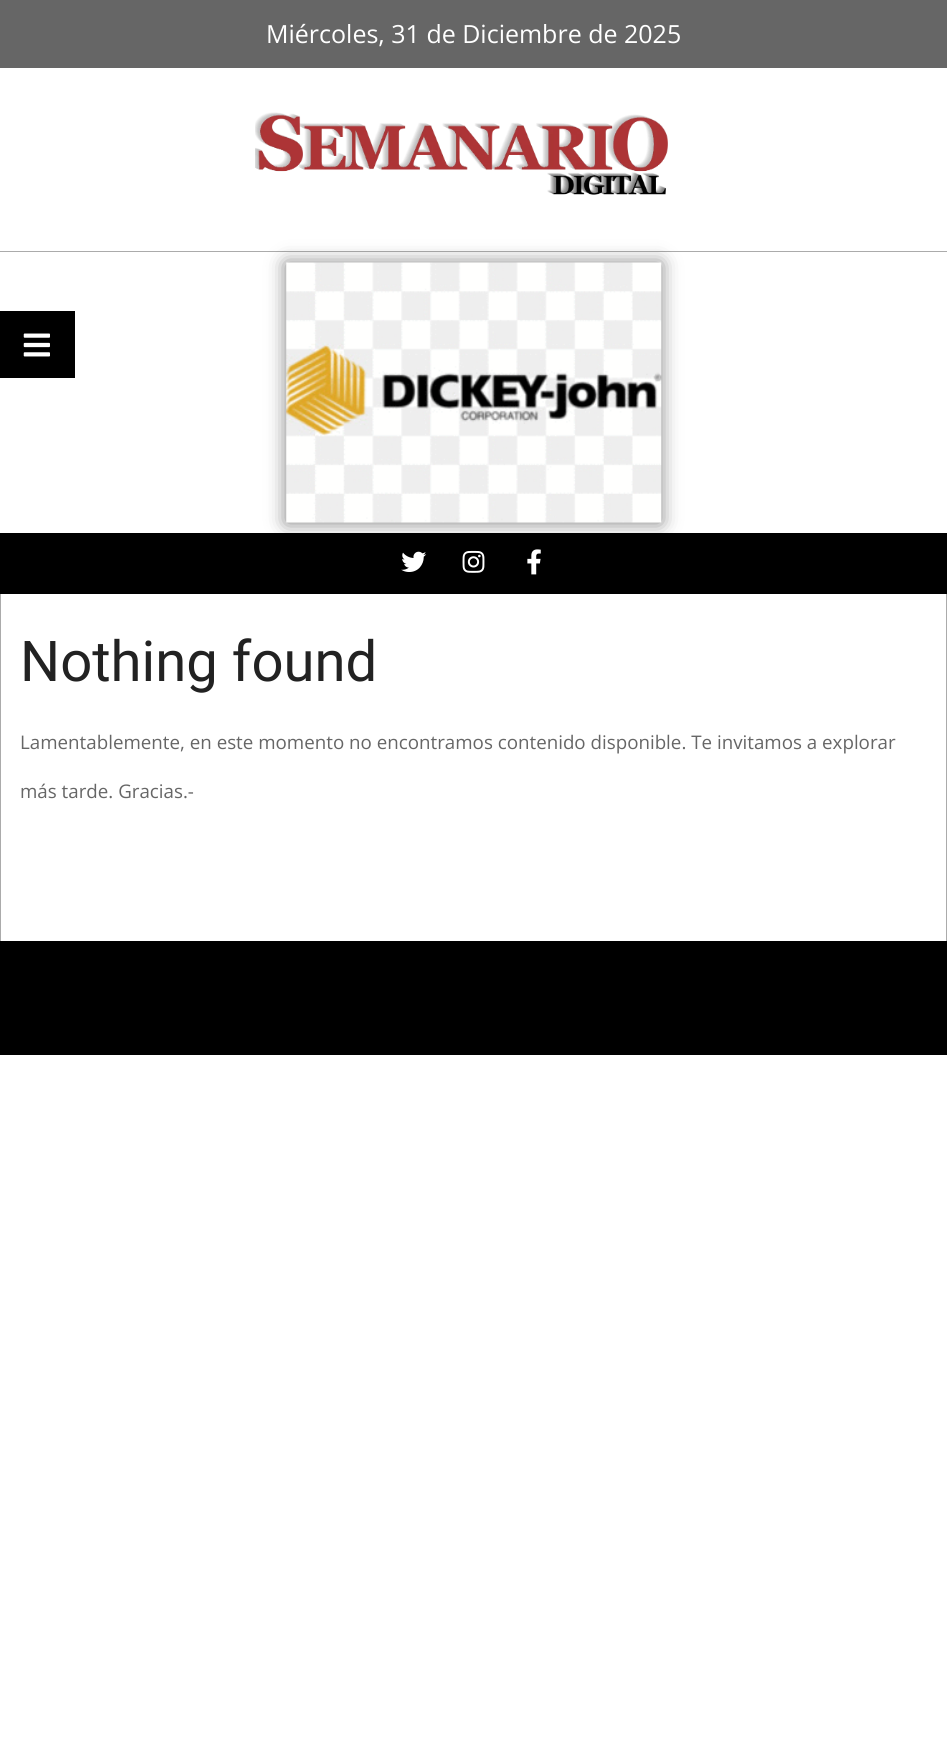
#include <cairo.h>
#include <math.h>
#include <stddef.h>


static void set_color(cairo_t *cr, unsigned color) {
    cairo_set_source_rgb(cr, (color >> 16) / 255.0, (color >> 8 & 255) / 255.0, (color & 255) / 255.0);
}

static void draw_text(cairo_t *cr, double x, double y, const char *s, const char *family, double size, int italic, int bold, unsigned color) {
    cairo_select_font_face(cr, family, italic ? CAIRO_FONT_SLANT_ITALIC : CAIRO_FONT_SLANT_NORMAL,
        bold ? CAIRO_FONT_WEIGHT_BOLD : CAIRO_FONT_WEIGHT_NORMAL);
    cairo_set_font_size(cr, size);
    set_color(cr, color);
    cairo_move_to(cr, x, y);
    cairo_show_text(cr, s);
}

static void fill_rect(cairo_t *cr, double x, double y, double w, double h, unsigned color) {
    set_color(cr, color);
    cairo_rectangle(cr, x, y, w, h);
    cairo_fill(cr);
}

static void rounded_rect(cairo_t *cr, double x, double y, double w, double h, double r) {
    cairo_new_sub_path(cr);
    cairo_arc(cr, x + w - r, y + h - r, r, 0, M_PI / 2);
    cairo_arc(cr, x + r, y + h - r, r, M_PI / 2, M_PI);
    cairo_arc(cr, x + r, y + r, r, M_PI, 1.5 * M_PI);
    cairo_arc(cr, x + w - r, y + r, r, 1.5 * M_PI, 2 * M_PI);
    cairo_close_path(cr);
}

static void draw_shadow(cairo_t *cr, double x, double y, double w, double h, double r, double blur, double alpha) {
    cairo_push_group_with_content(cr, CAIRO_CONTENT_ALPHA);
    cairo_set_operator(cr, CAIRO_OPERATOR_SOURCE);
    for (int i = 15; i >= -15 && fmin(w, h) + blur * i / 3 > 0; i -= 2) {
        double e = blur * i / 6;
        cairo_set_source_rgba(cr, 0, 0, 0, alpha * erfc((i - 1) / 8.5) / 2);
        rounded_rect(cr, x - e, y - e, w + 2 * e, h + 2 * e, fmax(0, fmin(r + e + blur * .6, fmin(w, h) / 2 + e)));
        cairo_fill(cr);
    }
    cairo_pattern_t *soft = cairo_pop_group(cr);
    cairo_mask(cr, soft);
    cairo_pattern_destroy(soft);
}

static void draw_image(cairo_t *cr, const char *path, double x, double y, double w, double h) {
    cairo_surface_t *image = cairo_image_surface_create_from_png(path);
    cairo_save(cr);
    cairo_set_source_surface(cr, image, x, y);
    cairo_rectangle(cr, x, y, w, h);
    cairo_fill(cr);
    cairo_restore(cr);
    cairo_surface_destroy(image);
}

int main(void) {
    cairo_surface_t *surface = cairo_image_surface_create(CAIRO_FORMAT_RGB24, 947, 1742);
    cairo_t *cr = cairo_create(surface);
    cairo_font_options_t *options = cairo_font_options_create();
    cairo_font_options_set_hint_metrics(options, CAIRO_HINT_METRICS_OFF);
    cairo_font_options_set_hint_style(options, CAIRO_HINT_STYLE_NONE);
    cairo_set_font_options(cr, options);
    cairo_set_miter_limit(cr, 4);
    set_color(cr, 0xFFFFFF);
    cairo_paint(cr);
    fill_rect(cr, 0, 0, 947, 68, 0x666666);
    draw_text(cr, 266, 43, "Miércoles, 31 de Diciembre de 2025", "Open Sans", 25, 0, 0, 0xFFFFFF);
    draw_image(cr, "assets/img1.png", 255, 112, 413, 83);
    fill_rect(cr, 0, 251, 947, 1, 0xABABAB);
    fill_rect(cr, 0, 533, 947, 61, 0x000000);
    set_color(cr, 0x000000);
    draw_shadow(cr, 286, 263, 375, 260, 0, 9.5, 0.5);
    draw_image(cr, "assets/img2.png", 286, 262, 376, 261);
    fill_rect(cr, 0, 311, 75, 67, 0x000000);
    draw_image(cr, "assets/img3.png", 23, 333, 27, 24);
    draw_image(cr, "assets/img4.png", 401, 551, 26, 21);
    draw_image(cr, "assets/img5.png", 462, 550, 23, 23);
    draw_image(cr, "assets/img6.png", 527, 549, 14, 26);
    fill_rect(cr, 946, 594, 1, 347, 0xABABAB);
    fill_rect(cr, 0, 594, 1, 347, 0xABABAB);
    draw_text(cr, 20, 681, "Nothing found", "Roboto", 56.25, 0, 0, 0x222222);
    draw_text(cr, 20, 749, "Lamentablemente, en este momento no encontramos contenido disponible. Te invitamos a explorar", "Open Sans", 18.75, 0, 0, 0x666666);
    draw_text(cr, 20, 798, "más tarde. Gracias.-", "Open Sans", 18.75, 0, 0, 0x666666);
    fill_rect(cr, 0, 941, 947, 114, 0x000000);
    cairo_surface_write_to_png(surface, "output.png");
    cairo_font_options_destroy(options);
    cairo_destroy(cr);
    cairo_surface_destroy(surface);
    return 0;
}
